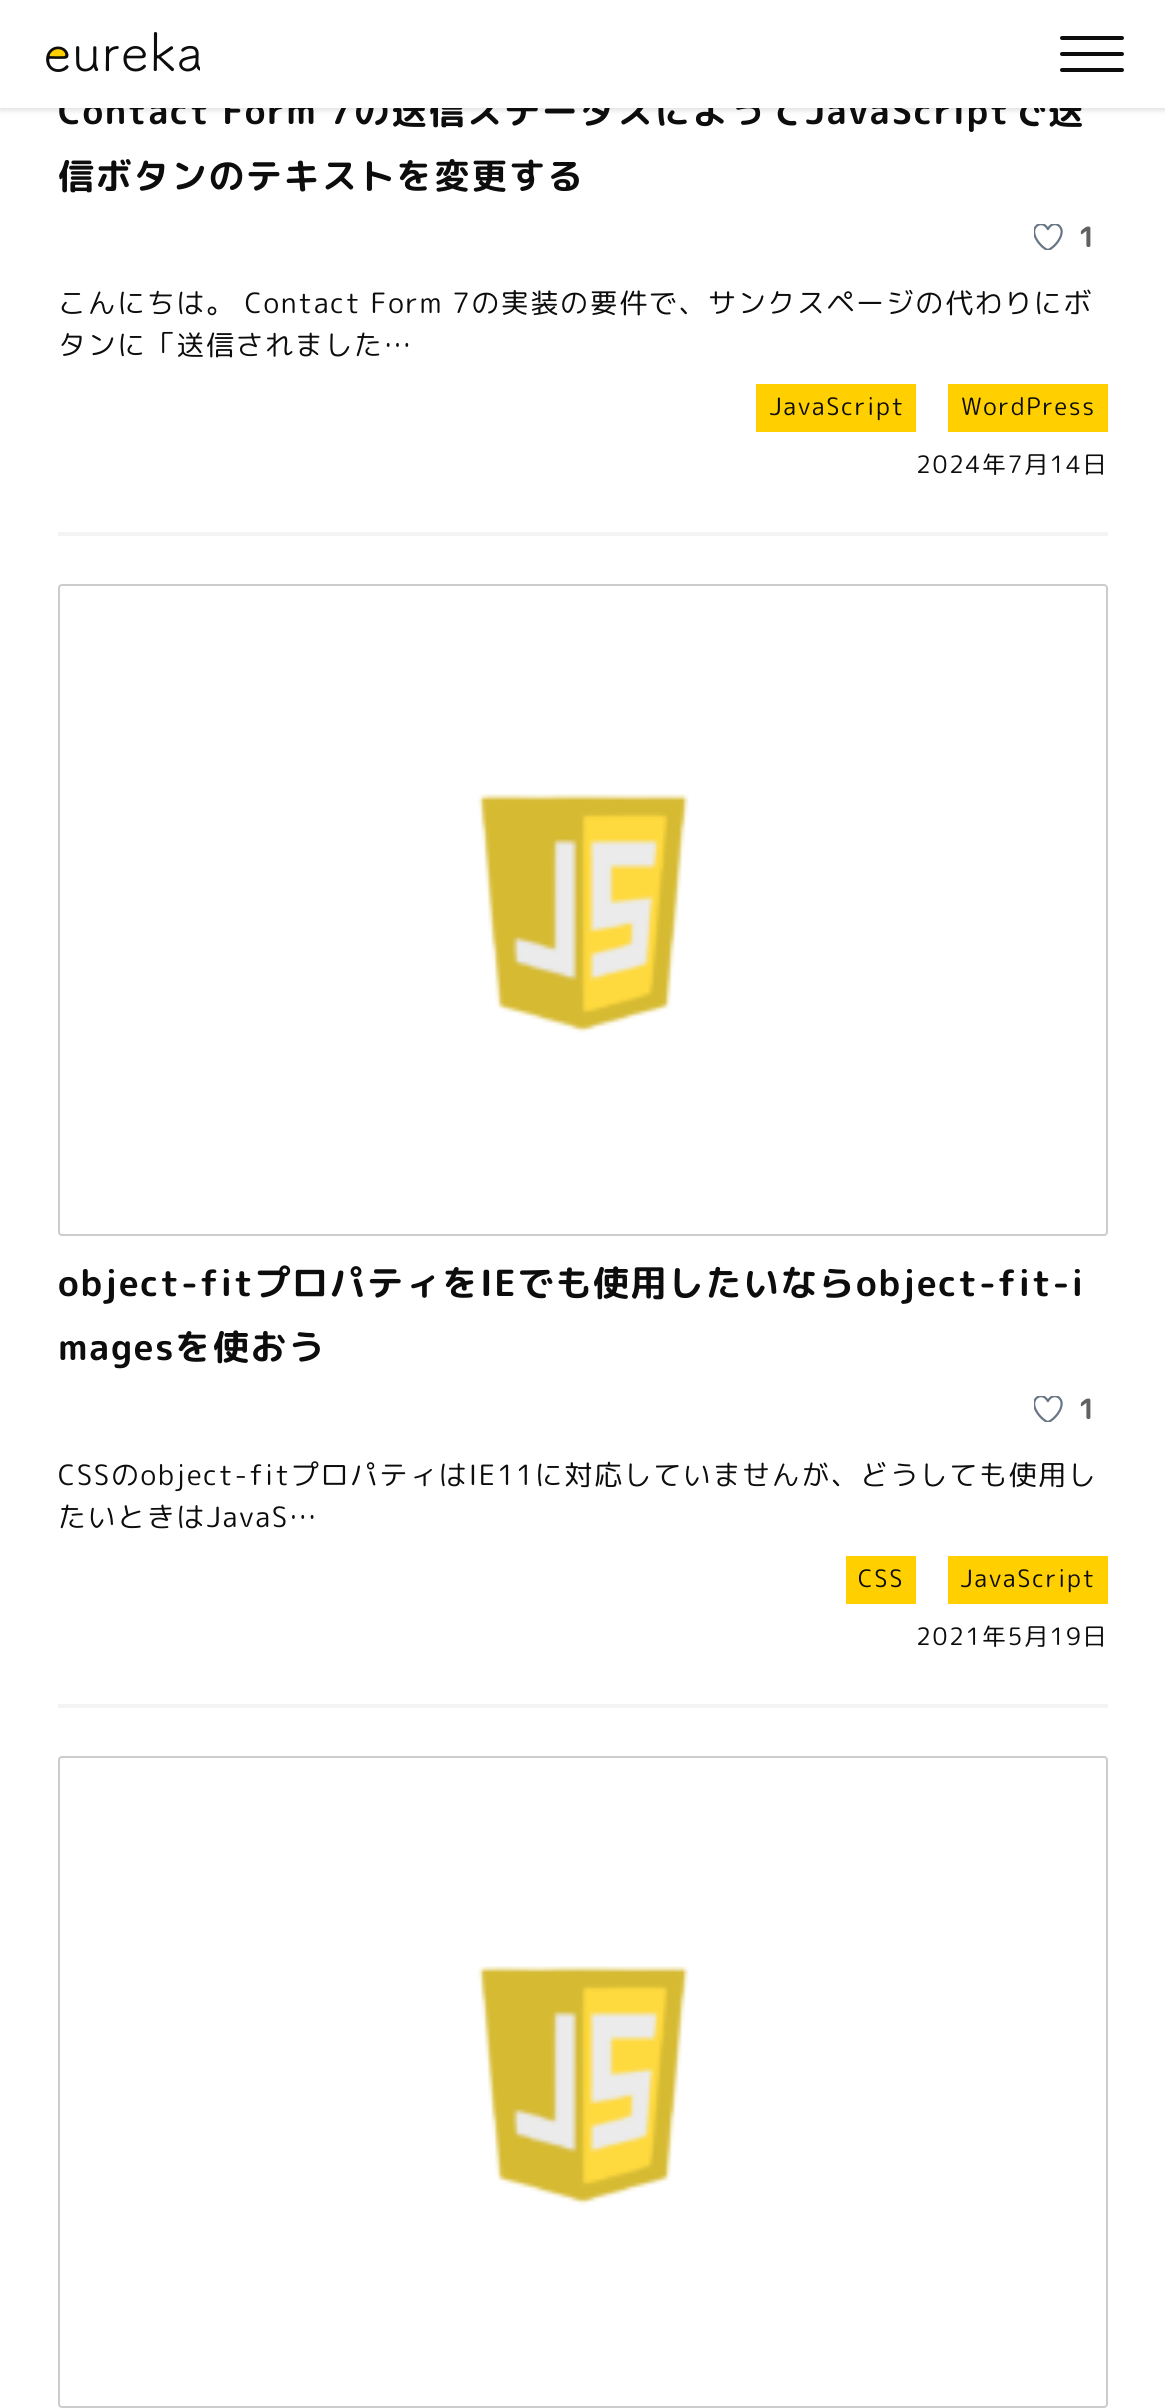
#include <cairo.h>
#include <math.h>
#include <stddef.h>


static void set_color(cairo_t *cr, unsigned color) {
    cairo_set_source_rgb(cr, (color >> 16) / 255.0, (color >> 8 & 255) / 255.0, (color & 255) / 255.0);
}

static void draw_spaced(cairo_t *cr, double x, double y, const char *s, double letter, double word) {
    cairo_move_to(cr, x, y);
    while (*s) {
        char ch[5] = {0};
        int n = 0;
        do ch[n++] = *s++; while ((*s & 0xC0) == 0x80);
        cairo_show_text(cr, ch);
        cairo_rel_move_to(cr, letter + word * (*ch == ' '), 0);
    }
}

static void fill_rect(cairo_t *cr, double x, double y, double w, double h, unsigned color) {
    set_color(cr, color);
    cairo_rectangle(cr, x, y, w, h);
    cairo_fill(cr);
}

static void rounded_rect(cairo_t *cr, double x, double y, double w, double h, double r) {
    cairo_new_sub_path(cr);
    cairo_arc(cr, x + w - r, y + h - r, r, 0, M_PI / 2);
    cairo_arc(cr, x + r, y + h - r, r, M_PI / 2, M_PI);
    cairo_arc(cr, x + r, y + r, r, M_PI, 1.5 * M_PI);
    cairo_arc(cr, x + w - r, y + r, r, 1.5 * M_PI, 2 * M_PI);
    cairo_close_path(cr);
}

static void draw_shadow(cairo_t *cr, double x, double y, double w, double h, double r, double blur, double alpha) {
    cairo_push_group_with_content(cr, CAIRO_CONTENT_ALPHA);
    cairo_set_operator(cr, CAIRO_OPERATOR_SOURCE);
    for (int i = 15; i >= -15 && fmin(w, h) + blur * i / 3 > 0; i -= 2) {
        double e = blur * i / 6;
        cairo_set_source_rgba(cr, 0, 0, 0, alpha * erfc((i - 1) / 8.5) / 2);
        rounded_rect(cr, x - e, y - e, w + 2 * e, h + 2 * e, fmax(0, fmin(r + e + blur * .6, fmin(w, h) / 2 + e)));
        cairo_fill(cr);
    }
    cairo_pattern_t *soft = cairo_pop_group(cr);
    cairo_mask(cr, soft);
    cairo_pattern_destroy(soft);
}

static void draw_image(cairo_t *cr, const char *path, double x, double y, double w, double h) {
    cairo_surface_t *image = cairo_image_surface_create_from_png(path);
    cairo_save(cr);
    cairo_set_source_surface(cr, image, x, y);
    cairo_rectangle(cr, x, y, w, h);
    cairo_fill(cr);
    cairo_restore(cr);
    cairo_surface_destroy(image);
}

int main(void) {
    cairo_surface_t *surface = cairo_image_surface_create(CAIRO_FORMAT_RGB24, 1165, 2408);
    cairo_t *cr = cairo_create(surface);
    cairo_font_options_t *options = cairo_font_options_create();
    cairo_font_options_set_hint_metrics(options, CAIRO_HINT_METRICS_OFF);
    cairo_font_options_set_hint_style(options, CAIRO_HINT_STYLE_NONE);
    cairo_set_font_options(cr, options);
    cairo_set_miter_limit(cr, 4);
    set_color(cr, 0xFFFFFF);
    cairo_paint(cr);
    set_color(cr, 0xDDDDDD);
    draw_shadow(cr, 0, 2, 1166, 108, 0, 3, 1);
    cairo_select_font_face(cr, "Rounded Mplus 1c Bold", CAIRO_FONT_SLANT_NORMAL, CAIRO_FONT_WEIGHT_BOLD);
    cairo_set_font_size(cr, 36);
    set_color(cr, 0x0D0D0D);
    draw_spaced(cr, 58, 124, "Contact Form 7の送信ステータスによってJavaScriptで送", 1.6, 0);
    fill_rect(cr, 0, 0, 1165, 108, 0xFFFFFF);
    draw_image(cr, "assets/img1.png", 46, 32, 154, 40);
    set_color(cr, 0x0D0D0D);
    rounded_rect(cr, 1060, 52, 64, 4, 2);
    cairo_fill(cr);
    rounded_rect(cr, 1060, 36, 64, 4, 2);
    cairo_fill(cr);
    rounded_rect(cr, 1060, 68, 64, 4, 2);
    cairo_fill(cr);
    fill_rect(cr, 58, 532, 1050, 4, 0xF4F4F4);
    set_color(cr, 0x0D0D0D);
    draw_spaced(cr, 58, 189, "信ボタンのテキストを変更する", 1.6, 0);
    draw_image(cr, "assets/img2.png", 1034, 224, 29, 26);
    cairo_set_font_size(cr, 28);
    set_color(cr, 0x616161);
    draw_spaced(cr, 1078, 247, "1", 1.6, 0);
    cairo_select_font_face(cr, "Rounded Mplus 1c", CAIRO_FONT_SLANT_NORMAL, CAIRO_FONT_WEIGHT_NORMAL);
    set_color(cr, 0x0D0D0D);
    draw_spaced(cr, 58, 313, "こんにちは。 Contact Form 7の実装の要件で、サンクスページの代わりにボ", 1.6, 0);
    draw_spaced(cr, 58, 355, "タンに「送信されました…", 1.6, 0);
    fill_rect(cr, 756, 384, 160, 48, 0xFFCF00);
    cairo_set_font_size(cr, 24);
    set_color(cr, 0x0D0D0D);
    draw_spaced(cr, 769, 415, "JavaScript", 1.6, 0);
    fill_rect(cr, 948, 384, 160, 48, 0xFFCF00);
    set_color(cr, 0x0D0D0D);
    draw_spaced(cr, 961, 415, "WordPress", 1.6, 0);
    draw_spaced(cr, 916, 473, "2024年7月14日", 1.6, 0);
    fill_rect(cr, 58, 1704, 1050, 4, 0xF4F4F4);
    rounded_rect(cr, 59, 585, 1048, 650, 3);
    set_color(cr, 0xCCCCCC);
    cairo_stroke(cr);
    draw_image(cr, "assets/img3.png", 477, 794, 212, 239);
    cairo_select_font_face(cr, "Rounded Mplus 1c Bold", CAIRO_FONT_SLANT_NORMAL, CAIRO_FONT_WEIGHT_BOLD);
    cairo_set_font_size(cr, 36);
    set_color(cr, 0x0D0D0D);
    draw_spaced(cr, 58, 1296, "object-fitプロパティをIEでも使用したいならobject-fit-i", 1.6, 0);
    draw_spaced(cr, 58, 1360, "magesを使おう", 1.6, 0);
    draw_image(cr, "assets/img2.png", 1034, 1396, 29, 26);
    cairo_set_font_size(cr, 28);
    set_color(cr, 0x616161);
    draw_spaced(cr, 1078, 1419, "1", 1.6, 0);
    cairo_select_font_face(cr, "Rounded Mplus 1c", CAIRO_FONT_SLANT_NORMAL, CAIRO_FONT_WEIGHT_NORMAL);
    set_color(cr, 0x0D0D0D);
    draw_spaced(cr, 58, 1485, "CSSのobject-fitプロパティはIE11に対応していませんが、どうしても使用し", 1.6, 0);
    draw_spaced(cr, 58, 1527, "たいときはJavaS…", 1.6, 0);
    fill_rect(cr, 846, 1556, 70, 48, 0xFFCF00);
    cairo_set_font_size(cr, 24);
    set_color(cr, 0x0D0D0D);
    draw_spaced(cr, 858, 1587, "CSS", 1.6, 0);
    fill_rect(cr, 948, 1556, 160, 48, 0xFFCF00);
    set_color(cr, 0x0D0D0D);
    draw_spaced(cr, 960, 1587, "JavaScript", 1.6, 0);
    draw_spaced(cr, 916, 1645, "2021年5月19日", 1.6, 0);
    rounded_rect(cr, 59, 1757, 1048, 650, 3);
    set_color(cr, 0xCCCCCC);
    cairo_stroke(cr);
    draw_image(cr, "assets/img3.png", 477, 1966, 212, 239);
    cairo_surface_write_to_png(surface, "output.png");
    cairo_font_options_destroy(options);
    cairo_destroy(cr);
    cairo_surface_destroy(surface);
    return 0;
}
